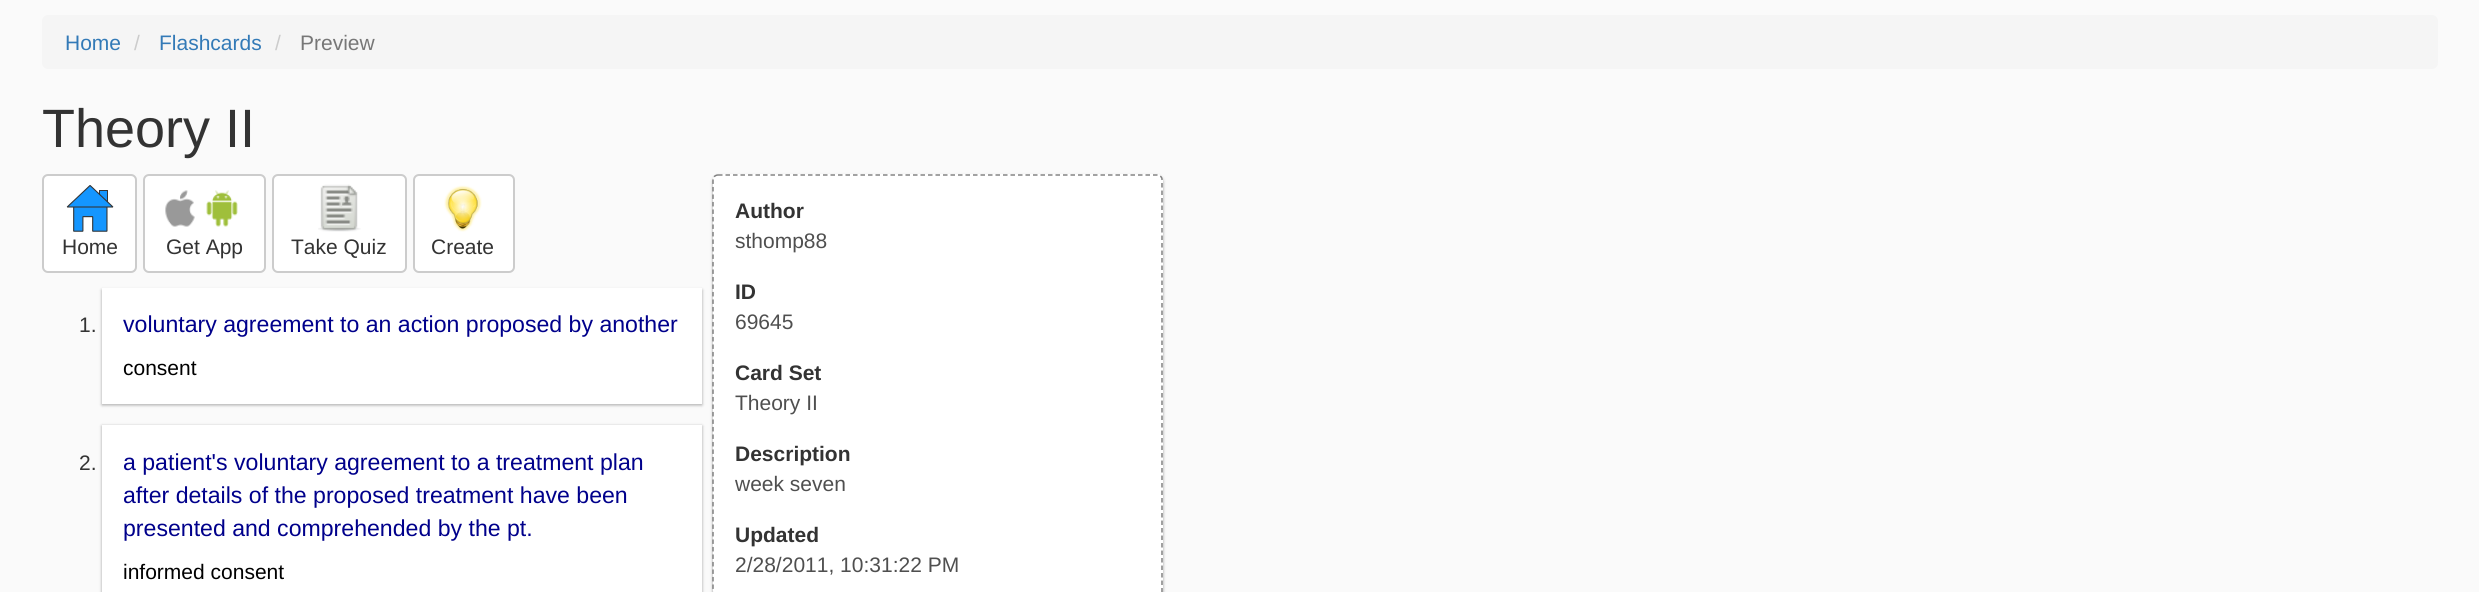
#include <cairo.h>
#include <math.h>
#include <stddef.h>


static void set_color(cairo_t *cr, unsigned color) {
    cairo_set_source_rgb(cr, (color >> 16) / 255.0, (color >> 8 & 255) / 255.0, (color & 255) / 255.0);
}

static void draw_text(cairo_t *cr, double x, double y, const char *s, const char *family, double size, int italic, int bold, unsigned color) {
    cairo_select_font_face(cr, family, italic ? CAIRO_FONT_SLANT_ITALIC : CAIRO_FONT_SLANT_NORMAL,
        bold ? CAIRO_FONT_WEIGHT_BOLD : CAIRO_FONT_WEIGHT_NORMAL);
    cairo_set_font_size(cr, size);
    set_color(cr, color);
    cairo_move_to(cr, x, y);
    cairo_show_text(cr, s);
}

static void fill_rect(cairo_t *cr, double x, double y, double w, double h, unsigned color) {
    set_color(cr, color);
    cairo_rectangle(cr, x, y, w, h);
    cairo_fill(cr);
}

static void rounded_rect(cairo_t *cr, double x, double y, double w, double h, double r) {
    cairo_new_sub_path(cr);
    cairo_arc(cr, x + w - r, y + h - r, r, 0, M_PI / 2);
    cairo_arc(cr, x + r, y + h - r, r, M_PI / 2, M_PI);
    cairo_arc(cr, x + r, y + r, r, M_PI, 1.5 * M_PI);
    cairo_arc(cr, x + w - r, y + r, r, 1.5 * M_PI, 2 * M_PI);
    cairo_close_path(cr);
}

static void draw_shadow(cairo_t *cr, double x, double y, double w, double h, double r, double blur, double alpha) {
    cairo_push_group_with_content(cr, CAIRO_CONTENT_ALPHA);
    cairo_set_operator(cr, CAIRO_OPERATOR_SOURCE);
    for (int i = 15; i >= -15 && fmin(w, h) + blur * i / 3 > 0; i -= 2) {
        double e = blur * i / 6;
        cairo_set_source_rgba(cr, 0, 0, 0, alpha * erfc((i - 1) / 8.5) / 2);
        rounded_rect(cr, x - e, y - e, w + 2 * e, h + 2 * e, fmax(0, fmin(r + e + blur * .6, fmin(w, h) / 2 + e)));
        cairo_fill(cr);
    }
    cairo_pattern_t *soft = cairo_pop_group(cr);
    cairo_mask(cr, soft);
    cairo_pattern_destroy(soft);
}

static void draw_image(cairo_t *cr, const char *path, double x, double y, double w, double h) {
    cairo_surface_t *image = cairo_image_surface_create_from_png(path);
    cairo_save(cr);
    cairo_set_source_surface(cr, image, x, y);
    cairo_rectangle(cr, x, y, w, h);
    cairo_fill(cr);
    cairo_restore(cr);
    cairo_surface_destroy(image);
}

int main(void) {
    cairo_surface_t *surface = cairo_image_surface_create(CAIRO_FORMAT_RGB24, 2479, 592);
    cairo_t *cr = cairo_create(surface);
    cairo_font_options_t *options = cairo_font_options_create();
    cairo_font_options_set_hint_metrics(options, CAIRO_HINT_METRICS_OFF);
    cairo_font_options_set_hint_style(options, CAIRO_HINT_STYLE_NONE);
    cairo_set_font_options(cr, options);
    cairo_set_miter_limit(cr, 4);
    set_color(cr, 0xFAFAFA);
    cairo_paint(cr);
    set_color(cr, 0xF5F5F5);
    rounded_rect(cr, 42, 15, 2396, 54, 6);
    cairo_fill(cr);
    draw_text(cr, 65, 50, "Home", "Liberation Sans", 21, 0, 0, 0x337AB7);
    draw_text(cr, 134, 50, "/", "Liberation Sans", 21, 0, 0, 0xCCCCCC);
    draw_text(cr, 159, 50, "Flashcards", "Liberation Sans", 21, 0, 0, 0x337AB7);
    draw_text(cr, 275, 50, "/", "Liberation Sans", 21, 0, 0, 0xCCCCCC);
    draw_text(cr, 300, 50, "Preview", "Liberation Sans", 21, 0, 0, 0x777777);
    draw_text(cr, 42, 147, "Theory II", "Liberation Sans", 54, 0, 0, 0x333333);
    set_color(cr, 0xFFFFFF);
    rounded_rect(cr, 43, 175, 93, 97, 5);
    cairo_fill_preserve(cr);
    set_color(cr, 0xCCCCCC);
    cairo_stroke(cr);
    draw_image(cr, "assets/img1.png", 66, 185, 48, 47);
    draw_text(cr, 62, 254, "Home", "Liberation Sans", 21, 0, 0, 0x333333);
    set_color(cr, 0xFFFFFF);
    rounded_rect(cr, 144, 175, 121, 97, 5);
    cairo_fill_preserve(cr);
    set_color(cr, 0xCCCCCC);
    cairo_stroke(cr);
    draw_image(cr, "assets/img2.png", 165, 190, 30, 37);
    draw_image(cr, "assets/img3.png", 206, 190, 32, 37);
    draw_text(cr, 166, 254, "Get App", "Liberation Sans", 21, 0, 0, 0x333333);
    set_color(cr, 0xFFFFFF);
    rounded_rect(cr, 273, 175, 133, 97, 5);
    cairo_fill_preserve(cr);
    set_color(cr, 0xCCCCCC);
    cairo_stroke(cr);
    draw_image(cr, "assets/img4.png", 318, 184, 43, 48);
    draw_text(cr, 291, 254, "Take Quiz", "Liberation Sans", 21, 0, 0, 0x333333);
    set_color(cr, 0xFFFFFF);
    rounded_rect(cr, 414, 175, 100, 97, 5);
    cairo_fill_preserve(cr);
    set_color(cr, 0xCCCCCC);
    cairo_stroke(cr);
    draw_image(cr, "assets/img5.png", 444, 185, 38, 47);
    draw_text(cr, 431, 254, "Create", "Liberation Sans", 21, 0, 0, 0x333333);
    draw_text(cr, 79, 332, "1.", "Liberation Sans", 21, 0, 0, 0x333333);
    set_color(cr, 0x000000);
    draw_shadow(cr, 102, 290, 600, 115, 0, 1.5, 0.24);
    draw_shadow(cr, 102, 290, 600, 115, 0, 2, 0.12);
    fill_rect(cr, 102, 288, 600, 116, 0xFFFFFF);
    draw_text(cr, 123, 332, "voluntary agreement to an action proposed by another", "Liberation Sans", 23.1, 0, 0, 0x00008B);
    draw_text(cr, 123, 375, "consent", "Liberation Sans", 21, 0, 0, 0x000000);
    draw_text(cr, 79, 470, "2.", "Liberation Sans", 21, 0, 0, 0x333333);
    set_color(cr, 0x000000);
    draw_shadow(cr, 102, 426, 600, 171, 0, 1.5, 0.24);
    draw_shadow(cr, 102, 426, 600, 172, 0, 2, 0.12);
    fill_rect(cr, 102, 425, 600, 167, 0xFFFFFF);
    draw_text(cr, 123, 470, "a patient's voluntary agreement to a treatment plan", "Liberation Sans", 23.1, 0, 0, 0x00008B);
    draw_text(cr, 123, 503, "after details of the proposed treatment have been", "Liberation Sans", 23.1, 0, 0, 0x00008B);
    draw_text(cr, 123, 536, "presented and comprehended by the pt.", "Liberation Sans", 23.1, 0, 0, 0x00008B);
    draw_text(cr, 123, 579, "informed consent", "Liberation Sans", 21, 0, 0, 0x000000);
    set_color(cr, 0x000000);
    draw_shadow(cr, 713, 176, 450, 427, 6, 1.5, 0.24);
    draw_shadow(cr, 713, 176, 450, 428, 6, 2, 0.12);
    set_color(cr, 0xFFFFFF);
    rounded_rect(cr, 713, 174, 450, 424, 6);
    cairo_fill(cr);
    cairo_new_path(cr);
    cairo_move_to(cr, 718, 175);
    cairo_line_to(cr, 1157, 175);
    cairo_curve_to(cr, 1159.5, 175, 1162, 177, 1162, 179);
    cairo_line_to(cr, 1162, 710);
    cairo_curve_to(cr, 1162, 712.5, 1159.5, 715, 1157, 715);
    cairo_line_to(cr, 718, 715);
    cairo_curve_to(cr, 715.5, 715, 713, 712.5, 713, 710);
    cairo_line_to(cr, 713, 179);
    cairo_curve_to(cr, 713, 177, 715.5, 175, 718, 175);
    cairo_close_path(cr);
    set_color(cr, 0x808080);
    cairo_set_line_width(cr, 1.5);
    cairo_set_dash(cr, (double[]){4.5, 3}, 2, 0);
    cairo_stroke(cr);
    draw_text(cr, 735, 218, "Author", "Liberation Sans", 21, 0, 1, 0x333333);
    draw_text(cr, 735, 248, "sthomp88", "Liberation Sans", 21, 0, 0, 0x4F4F4F);
    draw_text(cr, 735, 299, "ID", "Liberation Sans", 21, 0, 1, 0x333333);
    draw_text(cr, 735, 329, "69645", "Liberation Sans", 21, 0, 0, 0x4F4F4F);
    draw_text(cr, 735, 380, "Card Set", "Liberation Sans", 21, 0, 1, 0x333333);
    draw_text(cr, 735, 410, "Theory II", "Liberation Sans", 21, 0, 0, 0x4F4F4F);
    draw_text(cr, 735, 461, "Description", "Liberation Sans", 21, 0, 1, 0x333333);
    draw_text(cr, 735, 491, "week seven", "Liberation Sans", 21, 0, 0, 0x4F4F4F);
    draw_text(cr, 735, 542, "Updated", "Liberation Sans", 21, 0, 1, 0x333333);
    draw_text(cr, 735, 572, "2/28/2011, 10:31:22 PM", "Liberation Sans", 21, 0, 0, 0x4F4F4F);
    cairo_surface_write_to_png(surface, "output.png");
    cairo_font_options_destroy(options);
    cairo_destroy(cr);
    cairo_surface_destroy(surface);
    return 0;
}
